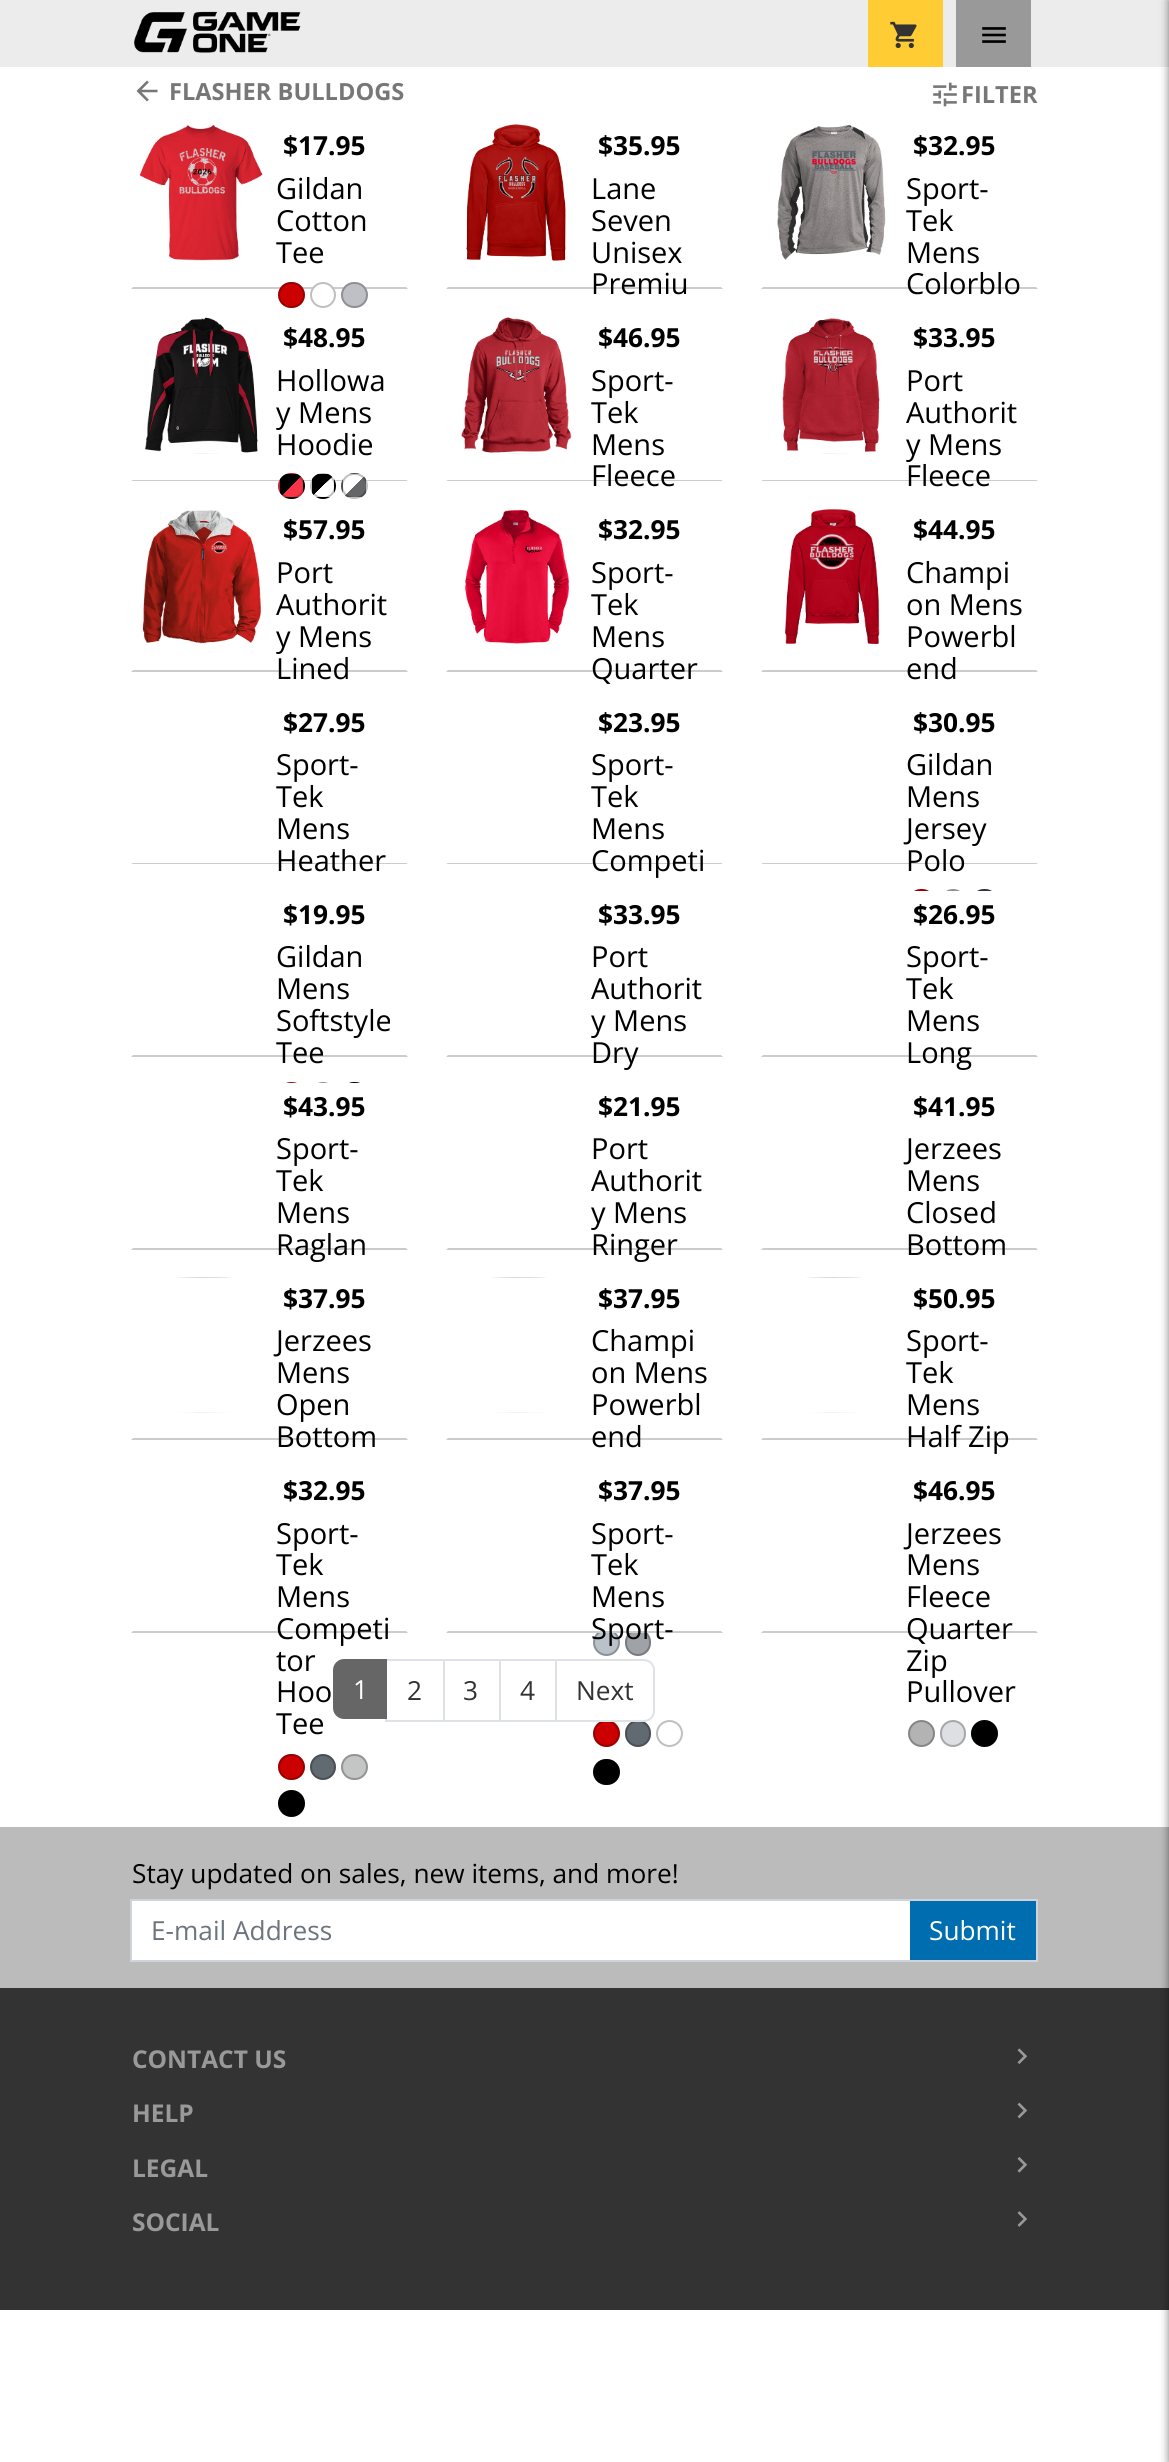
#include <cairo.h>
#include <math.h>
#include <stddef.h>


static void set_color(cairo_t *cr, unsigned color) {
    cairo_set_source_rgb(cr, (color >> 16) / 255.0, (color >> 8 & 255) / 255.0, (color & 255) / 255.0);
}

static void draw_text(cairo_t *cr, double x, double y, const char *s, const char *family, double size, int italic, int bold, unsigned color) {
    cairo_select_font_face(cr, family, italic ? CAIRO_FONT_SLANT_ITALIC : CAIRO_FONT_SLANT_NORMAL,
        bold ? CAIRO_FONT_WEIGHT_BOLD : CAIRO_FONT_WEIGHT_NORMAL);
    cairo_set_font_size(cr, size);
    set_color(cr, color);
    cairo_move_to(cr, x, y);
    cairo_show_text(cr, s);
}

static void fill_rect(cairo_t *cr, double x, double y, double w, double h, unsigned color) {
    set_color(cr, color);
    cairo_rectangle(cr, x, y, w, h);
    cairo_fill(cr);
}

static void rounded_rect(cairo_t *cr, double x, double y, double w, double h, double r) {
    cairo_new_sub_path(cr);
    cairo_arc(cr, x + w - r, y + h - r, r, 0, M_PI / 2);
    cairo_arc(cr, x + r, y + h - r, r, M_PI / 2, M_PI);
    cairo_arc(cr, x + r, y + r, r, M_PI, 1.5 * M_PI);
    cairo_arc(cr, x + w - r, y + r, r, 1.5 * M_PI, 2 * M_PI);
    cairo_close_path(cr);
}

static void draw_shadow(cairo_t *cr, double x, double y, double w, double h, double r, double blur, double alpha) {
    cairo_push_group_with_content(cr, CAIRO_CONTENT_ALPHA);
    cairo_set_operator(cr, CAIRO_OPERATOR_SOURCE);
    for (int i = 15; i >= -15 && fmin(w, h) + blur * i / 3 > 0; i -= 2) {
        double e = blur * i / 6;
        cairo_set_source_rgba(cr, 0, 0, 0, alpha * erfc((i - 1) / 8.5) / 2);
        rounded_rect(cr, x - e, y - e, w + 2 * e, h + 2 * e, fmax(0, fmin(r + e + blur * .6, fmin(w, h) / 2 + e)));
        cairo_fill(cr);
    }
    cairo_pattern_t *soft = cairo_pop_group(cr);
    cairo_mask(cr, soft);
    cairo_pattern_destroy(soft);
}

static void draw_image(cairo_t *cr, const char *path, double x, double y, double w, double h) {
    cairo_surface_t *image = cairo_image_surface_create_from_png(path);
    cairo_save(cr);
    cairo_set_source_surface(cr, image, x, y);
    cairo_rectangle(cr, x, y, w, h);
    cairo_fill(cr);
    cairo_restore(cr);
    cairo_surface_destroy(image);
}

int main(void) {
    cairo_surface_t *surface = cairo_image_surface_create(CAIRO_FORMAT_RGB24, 1169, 2462);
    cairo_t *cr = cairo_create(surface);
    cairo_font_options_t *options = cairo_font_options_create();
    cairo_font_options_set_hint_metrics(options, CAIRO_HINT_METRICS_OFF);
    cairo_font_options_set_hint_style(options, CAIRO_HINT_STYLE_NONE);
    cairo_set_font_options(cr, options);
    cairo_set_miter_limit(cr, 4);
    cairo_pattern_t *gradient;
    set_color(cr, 0xFFFFFF);
    cairo_paint(cr);
    fill_rect(cr, 0, 0, 1169, 67, 0xECECEC);
    draw_image(cr, "assets/img1.png", 134, 11, 167, 42);
    fill_rect(cr, 868, 0, 75, 67, 0xFFCC33);
    draw_image(cr, "assets/img2.png", 890, 21, 27, 28);
    fill_rect(cr, 956, 0, 75, 67, 0x999999);
    draw_image(cr, "assets/img3.png", 982, 27, 24, 16);
    draw_image(cr, "assets/img4.png", 136, 80, 22, 22);
    draw_text(cr, 169, 100, "FLASHER BULLDOGS", "Open Sans", 23.6, 0, 1, 0x777777);
    draw_image(cr, "assets/img5.png", 933, 82, 24, 25);
    draw_text(cr, 961, 103, "FILTER", "Open Sans", 23.6, 0, 1, 0x777777);
    set_color(cr, 0xCCCCCC);
    cairo_new_path(cr);
    cairo_move_to(cr, 408, 289);
    cairo_line_to(cr, 131, 289);
    cairo_line_to(cr, 133, 287);
    cairo_line_to(cr, 406, 287);
    cairo_close_path(cr);
    cairo_fill(cr);
    draw_image(cr, "assets/img6.png", 139, 124, 124, 137);
    draw_text(cr, 283, 155, "$17.95", "Open Sans", 26.25, 0, 1, 0x000000);
    draw_text(cr, 276, 199, "Gildan", "Open Sans", 29, 0, 0, 0x000000);
    draw_text(cr, 276, 231, "Cotton", "Open Sans", 29, 0, 0, 0x000000);
    draw_text(cr, 276, 263, "Tee", "Open Sans", 29, 0, 0, 0x000000);
    set_color(cr, 0xCC0000);
    rounded_rect(cr, 278, 282, 27, 26, 13);
    cairo_fill(cr);
    rounded_rect(cr, 279, 283, 25, 24, 12);
    cairo_set_source_rgba(cr, 0, 0, 0, 0.25);
    cairo_stroke(cr);
    set_color(cr, 0xFFFFFF);
    cairo_arc(cr, 323, 295, 13, 0, 2 * M_PI);
    cairo_fill(cr);
    cairo_arc(cr, 323, 295, 12, 0, 2 * M_PI);
    cairo_set_source_rgba(cr, 0, 0, 0, 0.25);
    cairo_stroke(cr);
    set_color(cr, 0xBFBFC6);
    rounded_rect(cr, 341, 282, 27, 26, 13);
    cairo_fill(cr);
    rounded_rect(cr, 342, 283, 25, 24, 12);
    cairo_set_source_rgba(cr, 0, 0, 0, 0.25);
    cairo_stroke(cr);
    set_color(cr, 0xCCCCCC);
    cairo_new_path(cr);
    cairo_move_to(cr, 723, 289);
    cairo_line_to(cr, 446, 289);
    cairo_line_to(cr, 448, 287);
    cairo_line_to(cr, 721, 287);
    cairo_close_path(cr);
    cairo_fill(cr);
    draw_image(cr, "assets/img7.png", 466, 124, 100, 137);
    draw_text(cr, 598, 155, "$35.95", "Open Sans", 26.25, 0, 1, 0x000000);
    draw_text(cr, 591, 199, "Lane", "Open Sans", 29, 0, 0, 0x000000);
    draw_text(cr, 591, 231, "Seven", "Open Sans", 29, 0, 0, 0x000000);
    draw_text(cr, 591, 263, "Unisex", "Open Sans", 29, 0, 0, 0x000000);
    draw_text(cr, 591, 294, "Premiu", "Open Sans", 29, 0, 0, 0x000000);
    set_color(cr, 0xCCCCCC);
    cairo_new_path(cr);
    cairo_move_to(cr, 1038, 289);
    cairo_line_to(cr, 761, 289);
    cairo_line_to(cr, 763, 287);
    cairo_line_to(cr, 1036, 287);
    cairo_close_path(cr);
    cairo_fill(cr);
    draw_image(cr, "assets/img8.png", 777, 124, 109, 136);
    draw_text(cr, 913, 155, "$32.95", "Open Sans", 26.25, 0, 1, 0x000000);
    draw_text(cr, 906, 199, "Sport-", "Open Sans", 29, 0, 0, 0x000000);
    draw_text(cr, 906, 231, "Tek", "Open Sans", 29, 0, 0, 0x000000);
    draw_text(cr, 906, 263, "Mens", "Open Sans", 29, 0, 0, 0x000000);
    draw_text(cr, 906, 294, "Colorblo", "Open Sans", 29, 0, 0, 0x000000);
    set_color(cr, 0xCCCCCC);
    cairo_new_path(cr);
    cairo_move_to(cr, 408, 481);
    cairo_line_to(cr, 131, 481);
    cairo_line_to(cr, 133, 480);
    cairo_line_to(cr, 406, 480);
    cairo_close_path(cr);
    cairo_fill(cr);
    draw_image(cr, "assets/img9.png", 191, 453, 28, 1);
    draw_image(cr, "assets/img10.png", 145, 317, 113, 136);
    draw_text(cr, 283, 347, "$48.95", "Open Sans", 26.25, 0, 1, 0x000000);
    draw_text(cr, 276, 391, "Hollowa", "Open Sans", 29, 0, 0, 0x000000);
    draw_text(cr, 276, 423, "y Mens", "Open Sans", 29, 0, 0, 0x000000);
    draw_text(cr, 276, 455, "Hoodie", "Open Sans", 29, 0, 0, 0x000000);
    cairo_save(cr);
    rounded_rect(cr, 278, 473, 27, 26, 13);
    cairo_clip(cr);
    gradient = cairo_pattern_create_linear(280, 452, 303, 474);
    cairo_pattern_add_color_stop_rgba(gradient, 0, 0, 0, 0, 1);
    cairo_pattern_add_color_stop_rgba(gradient, 0.5, 0, 0, 0, 1);
    cairo_pattern_add_color_stop_rgba(gradient, 0.51, 0.98, 0.204, 0.278, 1);
    cairo_pattern_add_color_stop_rgba(gradient, 1, 0.98, 0.204, 0.278, 1);
    cairo_set_source(cr, gradient);
    cairo_pattern_destroy(gradient);
    cairo_rectangle(cr, 280, 473, 23, 1);
    cairo_fill(cr);
    gradient = cairo_pattern_create_linear(257, 474, 280, 497);
    cairo_pattern_add_color_stop_rgba(gradient, 0, 0, 0, 0, 1);
    cairo_pattern_add_color_stop_rgba(gradient, 0.5, 0, 0, 0, 1);
    cairo_pattern_add_color_stop_rgba(gradient, 0.51, 0.98, 0.204, 0.278, 1);
    cairo_pattern_add_color_stop_rgba(gradient, 1, 0.98, 0.204, 0.278, 1);
    cairo_set_source(cr, gradient);
    cairo_pattern_destroy(gradient);
    cairo_rectangle(cr, 278, 474, 2, 23);
    cairo_fill(cr);
    gradient = cairo_pattern_create_linear(280, 474, 303, 497);
    cairo_pattern_add_color_stop_rgba(gradient, 0, 0, 0, 0, 1);
    cairo_pattern_add_color_stop_rgba(gradient, 0.5, 0, 0, 0, 1);
    cairo_pattern_add_color_stop_rgba(gradient, 0.51, 0.98, 0.204, 0.278, 1);
    cairo_pattern_add_color_stop_rgba(gradient, 1, 0.98, 0.204, 0.278, 1);
    cairo_set_source(cr, gradient);
    cairo_pattern_destroy(gradient);
    cairo_rectangle(cr, 280, 474, 23, 23);
    cairo_fill(cr);
    gradient = cairo_pattern_create_linear(303, 474, 326, 497);
    cairo_pattern_add_color_stop_rgba(gradient, 0, 0, 0, 0, 1);
    cairo_pattern_add_color_stop_rgba(gradient, 0.5, 0, 0, 0, 1);
    cairo_pattern_add_color_stop_rgba(gradient, 0.51, 0.98, 0.204, 0.278, 1);
    cairo_pattern_add_color_stop_rgba(gradient, 1, 0.98, 0.204, 0.278, 1);
    cairo_set_source(cr, gradient);
    cairo_pattern_destroy(gradient);
    cairo_rectangle(cr, 303, 474, 2, 23);
    cairo_fill(cr);
    gradient = cairo_pattern_create_linear(280, 497, 303, 520);
    cairo_pattern_add_color_stop_rgba(gradient, 0, 0, 0, 0, 1);
    cairo_pattern_add_color_stop_rgba(gradient, 0.5, 0, 0, 0, 1);
    cairo_pattern_add_color_stop_rgba(gradient, 0.51, 0.98, 0.204, 0.278, 1);
    cairo_pattern_add_color_stop_rgba(gradient, 1, 0.98, 0.204, 0.278, 1);
    cairo_set_source(cr, gradient);
    cairo_pattern_destroy(gradient);
    cairo_rectangle(cr, 280, 497, 23, 2);
    cairo_fill(cr);
    cairo_restore(cr);
    rounded_rect(cr, 279, 474, 25, 24, 12);
    cairo_set_source_rgba(cr, 0, 0, 0, 0.25);
    cairo_stroke(cr);
    cairo_save(cr);
    rounded_rect(cr, 310, 473, 26, 26, 13);
    cairo_clip(cr);
    gradient = cairo_pattern_create_linear(289, 474, 312, 497);
    cairo_pattern_add_color_stop_rgba(gradient, 0, 0, 0, 0, 1);
    cairo_pattern_add_color_stop_rgba(gradient, 0.5, 0, 0, 0, 1);
    cairo_pattern_add_color_stop_rgba(gradient, 0.51, 1, 1, 1, 1);
    cairo_pattern_add_color_stop_rgba(gradient, 1, 1, 1, 1, 1);
    cairo_set_source(cr, gradient);
    cairo_pattern_destroy(gradient);
    cairo_rectangle(cr, 310, 474, 2, 23);
    cairo_fill(cr);
    gradient = cairo_pattern_create_linear(312, 474, 334, 497);
    cairo_pattern_add_color_stop_rgba(gradient, 0, 0, 0, 0, 1);
    cairo_pattern_add_color_stop_rgba(gradient, 0.5, 0, 0, 0, 1);
    cairo_pattern_add_color_stop_rgba(gradient, 0.51, 1, 1, 1, 1);
    cairo_pattern_add_color_stop_rgba(gradient, 1, 1, 1, 1, 1);
    cairo_set_source(cr, gradient);
    cairo_pattern_destroy(gradient);
    cairo_rectangle(cr, 312, 474, 22, 23);
    cairo_fill(cr);
    gradient = cairo_pattern_create_linear(334, 474, 357, 497);
    cairo_pattern_add_color_stop_rgba(gradient, 0, 0, 0, 0, 1);
    cairo_pattern_add_color_stop_rgba(gradient, 0.5, 0, 0, 0, 1);
    cairo_pattern_add_color_stop_rgba(gradient, 0.51, 1, 1, 1, 1);
    cairo_pattern_add_color_stop_rgba(gradient, 1, 1, 1, 1, 1);
    cairo_set_source(cr, gradient);
    cairo_pattern_destroy(gradient);
    cairo_rectangle(cr, 334, 474, 2, 23);
    cairo_fill(cr);
    gradient = cairo_pattern_create_linear(312, 497, 334, 520);
    cairo_pattern_add_color_stop_rgba(gradient, 0, 0, 0, 0, 1);
    cairo_pattern_add_color_stop_rgba(gradient, 0.5, 0, 0, 0, 1);
    cairo_pattern_add_color_stop_rgba(gradient, 0.51, 1, 1, 1, 1);
    cairo_pattern_add_color_stop_rgba(gradient, 1, 1, 1, 1, 1);
    cairo_set_source(cr, gradient);
    cairo_pattern_destroy(gradient);
    cairo_rectangle(cr, 312, 497, 22, 2);
    cairo_fill(cr);
    cairo_restore(cr);
    cairo_arc(cr, 323, 486, 12, 0, 2 * M_PI);
    cairo_stroke(cr);
    cairo_save(cr);
    rounded_rect(cr, 341, 473, 27, 26, 13);
    cairo_clip(cr);
    gradient = cairo_pattern_create_linear(343, 452, 366, 474);
    cairo_pattern_add_color_stop_rgba(gradient, 0, 1, 1, 1, 1);
    cairo_pattern_add_color_stop_rgba(gradient, 0.5, 1, 1, 1, 1);
    cairo_pattern_add_color_stop_rgba(gradient, 0.51, 0.392, 0.404, 0.412, 1);
    cairo_pattern_add_color_stop_rgba(gradient, 1, 0.392, 0.404, 0.412, 1);
    cairo_set_source(cr, gradient);
    cairo_pattern_destroy(gradient);
    cairo_rectangle(cr, 343, 473, 23, 1);
    cairo_fill(cr);
    gradient = cairo_pattern_create_linear(320, 474, 343, 497);
    cairo_pattern_add_color_stop_rgba(gradient, 0, 1, 1, 1, 1);
    cairo_pattern_add_color_stop_rgba(gradient, 0.5, 1, 1, 1, 1);
    cairo_pattern_add_color_stop_rgba(gradient, 0.51, 0.392, 0.404, 0.412, 1);
    cairo_pattern_add_color_stop_rgba(gradient, 1, 0.392, 0.404, 0.412, 1);
    cairo_set_source(cr, gradient);
    cairo_pattern_destroy(gradient);
    cairo_rectangle(cr, 341, 474, 2, 23);
    cairo_fill(cr);
    gradient = cairo_pattern_create_linear(343, 474, 366, 497);
    cairo_pattern_add_color_stop_rgba(gradient, 0, 1, 1, 1, 1);
    cairo_pattern_add_color_stop_rgba(gradient, 0.5, 1, 1, 1, 1);
    cairo_pattern_add_color_stop_rgba(gradient, 0.51, 0.392, 0.404, 0.412, 1);
    cairo_pattern_add_color_stop_rgba(gradient, 1, 0.392, 0.404, 0.412, 1);
    cairo_set_source(cr, gradient);
    cairo_pattern_destroy(gradient);
    cairo_rectangle(cr, 343, 474, 23, 23);
    cairo_fill(cr);
    gradient = cairo_pattern_create_linear(366, 474, 389, 497);
    cairo_pattern_add_color_stop_rgba(gradient, 0, 1, 1, 1, 1);
    cairo_pattern_add_color_stop_rgba(gradient, 0.5, 1, 1, 1, 1);
    cairo_pattern_add_color_stop_rgba(gradient, 0.51, 0.392, 0.404, 0.412, 1);
    cairo_pattern_add_color_stop_rgba(gradient, 1, 0.392, 0.404, 0.412, 1);
    cairo_set_source(cr, gradient);
    cairo_pattern_destroy(gradient);
    cairo_rectangle(cr, 366, 474, 2, 23);
    cairo_fill(cr);
    cairo_restore(cr);
    rounded_rect(cr, 342, 474, 25, 24, 12);
    cairo_stroke(cr);
    set_color(cr, 0xCCCCCC);
    cairo_new_path(cr);
    cairo_move_to(cr, 723, 481);
    cairo_line_to(cr, 446, 481);
    cairo_line_to(cr, 448, 480);
    cairo_line_to(cr, 721, 480);
    cairo_close_path(cr);
    cairo_fill(cr);
    draw_image(cr, "assets/img9.png", 506, 453, 28, 1);
    draw_image(cr, "assets/img11.png", 461, 317, 111, 136);
    draw_text(cr, 598, 347, "$46.95", "Open Sans", 26.25, 0, 1, 0x000000);
    draw_text(cr, 591, 391, "Sport-", "Open Sans", 29, 0, 0, 0x000000);
    draw_text(cr, 591, 423, "Tek", "Open Sans", 29, 0, 0, 0x000000);
    draw_text(cr, 591, 455, "Mens", "Open Sans", 29, 0, 0, 0x000000);
    draw_text(cr, 591, 486, "Fleece", "Open Sans", 29, 0, 0, 0x000000);
    set_color(cr, 0xCCCCCC);
    cairo_new_path(cr);
    cairo_move_to(cr, 1038, 481);
    cairo_line_to(cr, 761, 481);
    cairo_line_to(cr, 763, 480);
    cairo_line_to(cr, 1036, 480);
    cairo_close_path(cr);
    cairo_fill(cr);
    draw_image(cr, "assets/img9.png", 821, 453, 28, 1);
    draw_image(cr, "assets/img12.png", 782, 318, 98, 134);
    draw_text(cr, 913, 347, "$33.95", "Open Sans", 26.25, 0, 1, 0x000000);
    draw_text(cr, 906, 391, "Port", "Open Sans", 29, 0, 0, 0x000000);
    draw_text(cr, 906, 423, "Authorit", "Open Sans", 29, 0, 0, 0x000000);
    draw_text(cr, 906, 455, "y Mens", "Open Sans", 29, 0, 0, 0x000000);
    draw_text(cr, 906, 486, "Fleece", "Open Sans", 29, 0, 0, 0x000000);
    set_color(cr, 0xCCCCCC);
    cairo_new_path(cr);
    cairo_move_to(cr, 408, 672);
    cairo_line_to(cr, 131, 672);
    cairo_line_to(cr, 133, 670);
    cairo_line_to(cr, 406, 670);
    cairo_close_path(cr);
    cairo_fill(cr);
    draw_image(cr, "assets/img13.png", 142, 510, 119, 134);
    draw_text(cr, 283, 539, "$57.95", "Open Sans", 26.25, 0, 1, 0x000000);
    draw_text(cr, 276, 583, "Port", "Open Sans", 29, 0, 0, 0x000000);
    draw_text(cr, 276, 615, "Authorit", "Open Sans", 29, 0, 0, 0x000000);
    draw_text(cr, 276, 647, "y Mens", "Open Sans", 29, 0, 0, 0x000000);
    draw_text(cr, 276, 679, "Lined", "Open Sans", 29, 0, 0, 0x000000);
    set_color(cr, 0xCCCCCC);
    cairo_new_path(cr);
    cairo_move_to(cr, 723, 672);
    cairo_line_to(cr, 446, 672);
    cairo_line_to(cr, 448, 670);
    cairo_line_to(cr, 721, 670);
    cairo_close_path(cr);
    cairo_fill(cr);
    draw_image(cr, "assets/img14.png", 465, 509, 104, 135);
    draw_text(cr, 598, 539, "$32.95", "Open Sans", 26.25, 0, 1, 0x000000);
    draw_text(cr, 591, 583, "Sport-", "Open Sans", 29, 0, 0, 0x000000);
    draw_text(cr, 591, 615, "Tek", "Open Sans", 29, 0, 0, 0x000000);
    draw_text(cr, 591, 647, "Mens", "Open Sans", 29, 0, 0, 0x000000);
    draw_text(cr, 591, 679, "Quarter", "Open Sans", 29, 0, 0, 0x000000);
    set_color(cr, 0xCCCCCC);
    cairo_new_path(cr);
    cairo_move_to(cr, 1038, 672);
    cairo_line_to(cr, 761, 672);
    cairo_line_to(cr, 763, 670);
    cairo_line_to(cr, 1036, 670);
    cairo_close_path(cr);
    cairo_fill(cr);
    draw_image(cr, "assets/img15.png", 785, 509, 95, 135);
    draw_text(cr, 913, 539, "$44.95", "Open Sans", 26.25, 0, 1, 0x000000);
    draw_text(cr, 906, 583, "Champi", "Open Sans", 29, 0, 0, 0x000000);
    draw_text(cr, 906, 615, "on Mens", "Open Sans", 29, 0, 0, 0x000000);
    draw_text(cr, 906, 647, "Powerbl", "Open Sans", 29, 0, 0, 0x000000);
    draw_text(cr, 906, 679, "end", "Open Sans", 29, 0, 0, 0x000000);
    set_color(cr, 0xCCCCCC);
    cairo_new_path(cr);
    cairo_move_to(cr, 408, 864);
    cairo_line_to(cr, 131, 864);
    cairo_line_to(cr, 133, 863);
    cairo_line_to(cr, 406, 863);
    cairo_close_path(cr);
    cairo_fill(cr);
    draw_text(cr, 283, 732, "$27.95", "Open Sans", 26.25, 0, 1, 0x000000);
    draw_text(cr, 276, 775, "Sport-", "Open Sans", 29, 0, 0, 0x000000);
    draw_text(cr, 276, 807, "Tek", "Open Sans", 29, 0, 0, 0x000000);
    draw_text(cr, 276, 839, "Mens", "Open Sans", 29, 0, 0, 0x000000);
    draw_text(cr, 276, 871, "Heather", "Open Sans", 29, 0, 0, 0x000000);
    set_color(cr, 0xCCCCCC);
    cairo_new_path(cr);
    cairo_move_to(cr, 723, 864);
    cairo_line_to(cr, 446, 864);
    cairo_line_to(cr, 448, 863);
    cairo_line_to(cr, 721, 863);
    cairo_close_path(cr);
    cairo_fill(cr);
    draw_text(cr, 598, 732, "$23.95", "Open Sans", 26.25, 0, 1, 0x000000);
    draw_text(cr, 591, 775, "Sport-", "Open Sans", 29, 0, 0, 0x000000);
    draw_text(cr, 591, 807, "Tek", "Open Sans", 29, 0, 0, 0x000000);
    draw_text(cr, 591, 839, "Mens", "Open Sans", 29, 0, 0, 0x000000);
    draw_text(cr, 591, 871, "Competi", "Open Sans", 29, 0, 0, 0x000000);
    set_color(cr, 0xCCCCCC);
    cairo_new_path(cr);
    cairo_move_to(cr, 1038, 864);
    cairo_line_to(cr, 761, 864);
    cairo_line_to(cr, 763, 863);
    cairo_line_to(cr, 1036, 863);
    cairo_close_path(cr);
    cairo_fill(cr);
    draw_text(cr, 913, 732, "$30.95", "Open Sans", 26.25, 0, 1, 0x000000);
    draw_text(cr, 906, 775, "Gildan", "Open Sans", 29, 0, 0, 0x000000);
    draw_text(cr, 906, 807, "Mens", "Open Sans", 29, 0, 0, 0x000000);
    draw_text(cr, 906, 839, "Jersey", "Open Sans", 29, 0, 0, 0x000000);
    draw_text(cr, 906, 871, "Polo", "Open Sans", 29, 0, 0, 0x000000);
    set_color(cr, 0xCC0000);
    rounded_rect(cr, 908, 889, 27, 26, 13);
    cairo_fill(cr);
    rounded_rect(cr, 909, 890, 25, 24, 12);
    cairo_set_source_rgba(cr, 0, 0, 0, 0.25);
    cairo_stroke(cr);
    set_color(cr, 0xBFBFC6);
    cairo_arc(cr, 953, 902, 13, 0, 2 * M_PI);
    cairo_fill(cr);
    cairo_arc(cr, 953, 902, 12, 0, 2 * M_PI);
    cairo_set_source_rgba(cr, 0, 0, 0, 0.25);
    cairo_stroke(cr);
    set_color(cr, 0x40464F);
    rounded_rect(cr, 971, 889, 27, 26, 13);
    cairo_fill(cr);
    rounded_rect(cr, 972, 890, 25, 24, 12);
    cairo_set_source_rgba(cr, 0, 0, 0, 0.25);
    cairo_stroke(cr);
    set_color(cr, 0xCCCCCC);
    cairo_new_path(cr);
    cairo_move_to(cr, 408, 1057);
    cairo_line_to(cr, 131, 1057);
    cairo_line_to(cr, 133, 1055);
    cairo_line_to(cr, 406, 1055);
    cairo_close_path(cr);
    cairo_fill(cr);
    draw_text(cr, 283, 924, "$19.95", "Open Sans", 26.25, 0, 1, 0x000000);
    draw_text(cr, 276, 967, "Gildan", "Open Sans", 29, 0, 0, 0x000000);
    draw_text(cr, 276, 999, "Mens", "Open Sans", 29, 0, 0, 0x000000);
    draw_text(cr, 276, 1031, "Softstyle", "Open Sans", 29, 0, 0, 0x000000);
    draw_text(cr, 276, 1063, "Tee", "Open Sans", 29, 0, 0, 0x000000);
    set_color(cr, 0xCB1E31);
    rounded_rect(cr, 278, 1082, 27, 26, 13);
    cairo_fill(cr);
    rounded_rect(cr, 279, 1083, 25, 24, 12);
    cairo_set_source_rgba(cr, 0, 0, 0, 0.25);
    cairo_stroke(cr);
    set_color(cr, 0xBFBFC6);
    cairo_arc(cr, 323, 1095, 13, 0, 2 * M_PI);
    cairo_fill(cr);
    cairo_arc(cr, 323, 1095, 12, 0, 2 * M_PI);
    cairo_set_source_rgba(cr, 0, 0, 0, 0.25);
    cairo_stroke(cr);
    set_color(cr, 0x000000);
    rounded_rect(cr, 341, 1082, 27, 26, 13);
    cairo_fill(cr);
    rounded_rect(cr, 342, 1083, 25, 24, 12);
    cairo_set_source_rgba(cr, 0, 0, 0, 0.25);
    cairo_stroke(cr);
    set_color(cr, 0xCCCCCC);
    cairo_new_path(cr);
    cairo_move_to(cr, 723, 1057);
    cairo_line_to(cr, 446, 1057);
    cairo_line_to(cr, 448, 1055);
    cairo_line_to(cr, 721, 1055);
    cairo_close_path(cr);
    cairo_fill(cr);
    draw_text(cr, 598, 924, "$33.95", "Open Sans", 26.25, 0, 1, 0x000000);
    draw_text(cr, 591, 967, "Port", "Open Sans", 29, 0, 0, 0x000000);
    draw_text(cr, 591, 999, "Authorit", "Open Sans", 29, 0, 0, 0x000000);
    draw_text(cr, 591, 1031, "y Mens", "Open Sans", 29, 0, 0, 0x000000);
    draw_text(cr, 591, 1063, "Dry", "Open Sans", 29, 0, 0, 0x000000);
    fill_rect(cr, 908, 891, 90, 24, 0xFFFFFF);
    set_color(cr, 0xCCCCCC);
    cairo_new_path(cr);
    cairo_move_to(cr, 1038, 1057);
    cairo_line_to(cr, 761, 1057);
    cairo_line_to(cr, 763, 1055);
    cairo_line_to(cr, 1036, 1055);
    cairo_close_path(cr);
    cairo_fill(cr);
    draw_text(cr, 913, 924, "$26.95", "Open Sans", 26.25, 0, 1, 0x000000);
    draw_text(cr, 906, 967, "Sport-", "Open Sans", 29, 0, 0, 0x000000);
    draw_text(cr, 906, 999, "Tek", "Open Sans", 29, 0, 0, 0x000000);
    draw_text(cr, 906, 1031, "Mens", "Open Sans", 29, 0, 0, 0x000000);
    draw_text(cr, 906, 1063, "Long", "Open Sans", 29, 0, 0, 0x000000);
    fill_rect(cr, 278, 1083, 90, 25, 0xFFFFFF);
    set_color(cr, 0xCCCCCC);
    cairo_new_path(cr);
    cairo_move_to(cr, 408, 1250);
    cairo_line_to(cr, 131, 1250);
    cairo_line_to(cr, 133, 1248);
    cairo_line_to(cr, 406, 1248);
    cairo_close_path(cr);
    cairo_fill(cr);
    draw_text(cr, 283, 1116, "$43.95", "Open Sans", 26.25, 0, 1, 0x000000);
    draw_text(cr, 276, 1159, "Sport-", "Open Sans", 29, 0, 0, 0x000000);
    draw_text(cr, 276, 1191, "Tek", "Open Sans", 29, 0, 0, 0x000000);
    draw_text(cr, 276, 1223, "Mens", "Open Sans", 29, 0, 0, 0x000000);
    draw_text(cr, 276, 1255, "Raglan", "Open Sans", 29, 0, 0, 0x000000);
    set_color(cr, 0xCCCCCC);
    cairo_new_path(cr);
    cairo_move_to(cr, 723, 1250);
    cairo_line_to(cr, 446, 1250);
    cairo_line_to(cr, 448, 1248);
    cairo_line_to(cr, 721, 1248);
    cairo_close_path(cr);
    cairo_fill(cr);
    draw_text(cr, 598, 1116, "$21.95", "Open Sans", 26.25, 0, 1, 0x000000);
    draw_text(cr, 591, 1159, "Port", "Open Sans", 29, 0, 0, 0x000000);
    draw_text(cr, 591, 1191, "Authorit", "Open Sans", 29, 0, 0, 0x000000);
    draw_text(cr, 591, 1223, "y Mens", "Open Sans", 29, 0, 0, 0x000000);
    draw_text(cr, 591, 1255, "Ringer", "Open Sans", 29, 0, 0, 0x000000);
    set_color(cr, 0xCCCCCC);
    cairo_new_path(cr);
    cairo_move_to(cr, 1038, 1250);
    cairo_line_to(cr, 761, 1250);
    cairo_line_to(cr, 763, 1248);
    cairo_line_to(cr, 1036, 1248);
    cairo_close_path(cr);
    cairo_fill(cr);
    draw_text(cr, 913, 1116, "$41.95", "Open Sans", 26.25, 0, 1, 0x000000);
    draw_text(cr, 906, 1159, "Jerzees", "Open Sans", 29, 0, 0, 0x000000);
    draw_text(cr, 906, 1191, "Mens", "Open Sans", 29, 0, 0, 0x000000);
    draw_text(cr, 906, 1223, "Closed", "Open Sans", 29, 0, 0, 0x000000);
    draw_text(cr, 906, 1255, "Bottom", "Open Sans", 29, 0, 0, 0x000000);
    set_color(cr, 0xCCCCCC);
    cairo_new_path(cr);
    cairo_move_to(cr, 408, 1440);
    cairo_line_to(cr, 131, 1440);
    cairo_line_to(cr, 133, 1438);
    cairo_line_to(cr, 406, 1438);
    cairo_close_path(cr);
    cairo_fill(cr);
    draw_image(cr, "assets/img16.png", 176, 1277, 55, 136);
    set_color(cr, 0xFFFFFF);
    cairo_new_path(cr);
    cairo_move_to(cr, 142, 1278);
    cairo_line_to(cr, 261, 1278);
    cairo_curve_to(cr, 266, 1278, 270, 1282, 270, 1287);
    cairo_line_to(cr, 270, 1412);
    cairo_line_to(cr, 133, 1412);
    cairo_line_to(cr, 133, 1287);
    cairo_curve_to(cr, 133, 1282, 137, 1278, 142, 1278);
    cairo_close_path(cr);
    cairo_fill(cr);
    draw_text(cr, 283, 1308, "$37.95", "Open Sans", 26.25, 0, 1, 0x000000);
    draw_text(cr, 276, 1351, "Jerzees", "Open Sans", 29, 0, 0, 0x000000);
    draw_text(cr, 276, 1383, "Mens", "Open Sans", 29, 0, 0, 0x000000);
    draw_text(cr, 276, 1415, "Open", "Open Sans", 29, 0, 0, 0x000000);
    draw_text(cr, 276, 1447, "Bottom", "Open Sans", 29, 0, 0, 0x000000);
    set_color(cr, 0xCCCCCC);
    cairo_new_path(cr);
    cairo_move_to(cr, 723, 1440);
    cairo_line_to(cr, 446, 1440);
    cairo_line_to(cr, 448, 1438);
    cairo_line_to(cr, 721, 1438);
    cairo_close_path(cr);
    cairo_fill(cr);
    draw_image(cr, "assets/img16.png", 491, 1277, 55, 136);
    set_color(cr, 0xFFFFFF);
    cairo_new_path(cr);
    cairo_move_to(cr, 457, 1278);
    cairo_line_to(cr, 576, 1278);
    cairo_curve_to(cr, 581, 1278, 585, 1282, 585, 1287);
    cairo_line_to(cr, 585, 1412);
    cairo_line_to(cr, 448, 1412);
    cairo_line_to(cr, 448, 1287);
    cairo_curve_to(cr, 448, 1282, 452, 1278, 457, 1278);
    cairo_close_path(cr);
    cairo_fill(cr);
    draw_text(cr, 598, 1308, "$37.95", "Open Sans", 26.25, 0, 1, 0x000000);
    draw_text(cr, 591, 1351, "Champi", "Open Sans", 29, 0, 0, 0x000000);
    draw_text(cr, 591, 1383, "on Mens", "Open Sans", 29, 0, 0, 0x000000);
    draw_text(cr, 591, 1415, "Powerbl", "Open Sans", 29, 0, 0, 0x000000);
    draw_text(cr, 591, 1447, "end", "Open Sans", 29, 0, 0, 0x000000);
    set_color(cr, 0xB9C1C9);
    cairo_new_path(cr);
    cairo_arc(cr, 606.5, 1642.5, 13.5, 0, 2 * M_PI);
    cairo_fill(cr);
    cairo_arc(cr, 606.5, 1642.5, 12.5, 0, 2 * M_PI);
    cairo_set_source_rgba(cr, 0, 0, 0, 0.25);
    cairo_stroke(cr);
    set_color(cr, 0x9FA3A8);
    rounded_rect(cr, 625, 1629, 26, 27, 13);
    cairo_fill(cr);
    rounded_rect(cr, 626, 1630, 24, 25, 12);
    cairo_set_source_rgba(cr, 0, 0, 0, 0.25);
    cairo_stroke(cr);
    set_color(cr, 0xCCCCCC);
    cairo_new_path(cr);
    cairo_move_to(cr, 1038, 1440);
    cairo_line_to(cr, 761, 1440);
    cairo_line_to(cr, 763, 1438);
    cairo_line_to(cr, 1036, 1438);
    cairo_close_path(cr);
    cairo_fill(cr);
    draw_image(cr, "assets/img16.png", 806, 1277, 55, 136);
    set_color(cr, 0xFFFFFF);
    cairo_new_path(cr);
    cairo_move_to(cr, 772, 1278);
    cairo_line_to(cr, 891, 1278);
    cairo_curve_to(cr, 896, 1278, 900, 1282, 900, 1287);
    cairo_line_to(cr, 900, 1412);
    cairo_line_to(cr, 763, 1412);
    cairo_line_to(cr, 763, 1287);
    cairo_curve_to(cr, 763, 1282, 767, 1278, 772, 1278);
    cairo_close_path(cr);
    cairo_fill(cr);
    draw_text(cr, 913, 1308, "$50.95", "Open Sans", 26.25, 0, 1, 0x000000);
    draw_text(cr, 906, 1351, "Sport-", "Open Sans", 29, 0, 0, 0x000000);
    draw_text(cr, 906, 1383, "Tek", "Open Sans", 29, 0, 0, 0x000000);
    draw_text(cr, 906, 1415, "Mens", "Open Sans", 29, 0, 0, 0x000000);
    draw_text(cr, 906, 1447, "Half Zip", "Open Sans", 29, 0, 0, 0x000000);
    set_color(cr, 0xCCCCCC);
    cairo_new_path(cr);
    cairo_move_to(cr, 408, 1633);
    cairo_line_to(cr, 131, 1633);
    cairo_line_to(cr, 133, 1631);
    cairo_line_to(cr, 406, 1631);
    cairo_close_path(cr);
    cairo_fill(cr);
    draw_text(cr, 283, 1500, "$32.95", "Open Sans", 26.25, 0, 1, 0x000000);
    draw_text(cr, 276, 1544, "Sport-", "Open Sans", 29, 0, 0, 0x000000);
    draw_text(cr, 276, 1575, "Tek", "Open Sans", 29, 0, 0, 0x000000);
    draw_text(cr, 276, 1607, "Mens", "Open Sans", 29, 0, 0, 0x000000);
    draw_text(cr, 276, 1639, "Competi", "Open Sans", 29, 0, 0, 0x000000);
    draw_text(cr, 276, 1671, "tor", "Open Sans", 29, 0, 0, 0x000000);
    draw_text(cr, 276, 1702, "Hoo", "Open Sans", 29, 0, 0, 0x000000);
    draw_text(cr, 276, 1734, "Tee", "Open Sans", 29, 0, 0, 0x000000);
    set_color(cr, 0xCC0000);
    rounded_rect(cr, 278, 1754, 27, 26, 13);
    cairo_fill(cr);
    rounded_rect(cr, 279, 1755, 25, 24, 12);
    cairo_set_source_rgba(cr, 0, 0, 0, 0.25);
    cairo_stroke(cr);
    set_color(cr, 0x626A71);
    cairo_arc(cr, 323, 1767, 13, 0, 2 * M_PI);
    cairo_fill(cr);
    cairo_arc(cr, 323, 1767, 12, 0, 2 * M_PI);
    cairo_set_source_rgba(cr, 0, 0, 0, 0.25);
    cairo_stroke(cr);
    set_color(cr, 0xC4C6C5);
    rounded_rect(cr, 341, 1754, 27, 26, 13);
    cairo_fill(cr);
    rounded_rect(cr, 342, 1755, 25, 24, 12);
    cairo_set_source_rgba(cr, 0, 0, 0, 0.25);
    cairo_stroke(cr);
    set_color(cr, 0x000000);
    cairo_arc(cr, 291.5, 1803.5, 13.5, 0, 2 * M_PI);
    cairo_fill(cr);
    cairo_arc(cr, 291.5, 1803.5, 12.5, 0, 2 * M_PI);
    cairo_set_source_rgba(cr, 0, 0, 0, 0.25);
    cairo_stroke(cr);
    cairo_rectangle(cr, 386, 1660, 58, 61);
    set_color(cr, 0xDEE2E6);
    cairo_stroke(cr);
    set_color(cr, 0x666666);
    cairo_new_path(cr);
    cairo_move_to(cr, 344, 1659);
    cairo_line_to(cr, 387, 1659);
    cairo_line_to(cr, 387, 1719);
    cairo_line_to(cr, 344, 1719);
    cairo_curve_to(cr, 338, 1719, 333, 1714, 333, 1708);
    cairo_line_to(cr, 333, 1670);
    cairo_curve_to(cr, 333, 1664, 338, 1659, 344, 1659);
    cairo_close_path(cr);
    cairo_fill(cr);
    draw_text(cr, 353, 1699, "1", "Open Sans", 26.25, 0, 0, 0xFFFFFF);
    draw_text(cr, 407, 1700, "2", "Open Sans", 26.25, 0, 0, 0x333333);
    cairo_rectangle(cr, 444, 1660, 56, 61);
    set_color(cr, 0xDEE2E6);
    cairo_stroke(cr);
    draw_text(cr, 463, 1700, "3", "Open Sans", 26.25, 0, 0, 0x333333);
    cairo_rectangle(cr, 500, 1660, 56, 61);
    set_color(cr, 0xDEE2E6);
    cairo_stroke(cr);
    draw_text(cr, 520, 1700, "4", "Open Sans", 26.25, 0, 0, 0x333333);
    set_color(cr, 0xCC0000);
    cairo_new_path(cr);
    cairo_arc(cr, 606.5, 1733.5, 13.5, 0, 2 * M_PI);
    cairo_fill(cr);
    cairo_arc(cr, 606.5, 1733.5, 12.5, 0, 2 * M_PI);
    cairo_set_source_rgba(cr, 0, 0, 0, 0.25);
    cairo_stroke(cr);
    set_color(cr, 0x626A71);
    rounded_rect(cr, 625, 1720, 26, 27, 13);
    cairo_fill(cr);
    rounded_rect(cr, 626, 1721, 24, 25, 12);
    cairo_set_source_rgba(cr, 0, 0, 0, 0.25);
    cairo_stroke(cr);
    set_color(cr, 0xFFFFFF);
    cairo_new_path(cr);
    cairo_move_to(cr, 556, 1660);
    cairo_line_to(cr, 644, 1660);
    cairo_curve_to(cr, 649.5, 1660, 654, 1664.5, 654, 1670);
    cairo_line_to(cr, 654, 1711);
    cairo_curve_to(cr, 654, 1716.5, 649.5, 1721, 644, 1721);
    cairo_line_to(cr, 556, 1721);
    cairo_close_path(cr);
    cairo_fill_preserve(cr);
    set_color(cr, 0xDEE2E6);
    cairo_stroke(cr);
    draw_text(cr, 576, 1700, "Next", "Open Sans", 26.25, 0, 0, 0x333333);
    fill_rect(cr, 597, 1629, 51, 4, 0xFFFFFF);
    set_color(cr, 0xCCCCCC);
    cairo_new_path(cr);
    cairo_move_to(cr, 723, 1633);
    cairo_line_to(cr, 446, 1633);
    cairo_line_to(cr, 448, 1631);
    cairo_line_to(cr, 721, 1631);
    cairo_close_path(cr);
    cairo_fill(cr);
    draw_text(cr, 598, 1500, "$37.95", "Open Sans", 26.25, 0, 1, 0x000000);
    draw_text(cr, 591, 1544, "Sport-", "Open Sans", 29, 0, 0, 0x000000);
    draw_text(cr, 591, 1575, "Tek", "Open Sans", 29, 0, 0, 0x000000);
    draw_text(cr, 591, 1607, "Mens", "Open Sans", 29, 0, 0, 0x000000);
    draw_text(cr, 591, 1639, "Sport-", "Open Sans", 29, 0, 0, 0x000000);
    cairo_new_path(cr);
    cairo_arc(cr, 669.5, 1733.5, 12.5, 0, 2 * M_PI);
    set_color(cr, 0xBFBFBF);
    cairo_stroke(cr);
    set_color(cr, 0x000000);
    rounded_rect(cr, 593, 1759, 27, 26, 13);
    cairo_fill(cr);
    rounded_rect(cr, 594, 1760, 25, 24, 12);
    cairo_set_source_rgba(cr, 0, 0, 0, 0.25);
    cairo_stroke(cr);
    set_color(cr, 0xCCCCCC);
    cairo_new_path(cr);
    cairo_move_to(cr, 1038, 1633);
    cairo_line_to(cr, 761, 1633);
    cairo_line_to(cr, 763, 1631);
    cairo_line_to(cr, 1036, 1631);
    cairo_close_path(cr);
    cairo_fill(cr);
    draw_text(cr, 913, 1500, "$46.95", "Open Sans", 26.25, 0, 1, 0x000000);
    draw_text(cr, 906, 1544, "Jerzees", "Open Sans", 29, 0, 0, 0x000000);
    draw_text(cr, 906, 1575, "Mens", "Open Sans", 29, 0, 0, 0x000000);
    draw_text(cr, 906, 1607, "Fleece", "Open Sans", 29, 0, 0, 0x000000);
    draw_text(cr, 906, 1639, "Quarter", "Open Sans", 29, 0, 0, 0x000000);
    draw_text(cr, 906, 1671, "Zip", "Open Sans", 29, 0, 0, 0x000000);
    draw_text(cr, 906, 1702, "Pullover", "Open Sans", 29, 0, 0, 0x000000);
    set_color(cr, 0xB3B3B3);
    cairo_new_path(cr);
    cairo_arc(cr, 921.5, 1733.5, 13.5, 0, 2 * M_PI);
    cairo_fill(cr);
    cairo_arc(cr, 921.5, 1733.5, 12.5, 0, 2 * M_PI);
    cairo_set_source_rgba(cr, 0, 0, 0, 0.25);
    cairo_stroke(cr);
    set_color(cr, 0xDDDFE3);
    rounded_rect(cr, 940, 1720, 26, 27, 13);
    cairo_fill(cr);
    rounded_rect(cr, 941, 1721, 24, 25, 12);
    cairo_set_source_rgba(cr, 0, 0, 0, 0.25);
    cairo_stroke(cr);
    set_color(cr, 0x000000);
    cairo_arc(cr, 984.5, 1733.5, 13.5, 0, 2 * M_PI);
    cairo_fill(cr);
    cairo_arc(cr, 984.5, 1733.5, 12.5, 0, 2 * M_PI);
    cairo_set_source_rgba(cr, 0, 0, 0, 0.25);
    cairo_stroke(cr);
    fill_rect(cr, 0, 1827, 1169, 161, 0xBBBBBB);
    fill_rect(cr, 0, 1988, 1169, 322, 0x333333);
    set_color(cr, 0x000000);
    draw_shadow(cr, 1169, 0, 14, 2462, 0, 4.5, 0.5);
    draw_text(cr, 132, 1883, "Stay updated on sales, new items, and more!", "Open Sans", 26.25, 0, 0, 0x000000);
    fill_rect(cr, 132, 1901, 778, 59, 0xFFFFFF);
    fill_rect(cr, 130, 1899, 908, 2, 0xCED4DA);
    fill_rect(cr, 130, 1960, 782, 2, 0xCED4DA);
    fill_rect(cr, 130, 1899, 2, 63, 0xCED4DA);
    draw_text(cr, 151, 1940, "E-mail Address", "Open Sans", 26.25, 0, 0, 0x6C757D);
    fill_rect(cr, 910, 1901, 126, 59, 0x006DB0);
    fill_rect(cr, 1036, 1899, 2, 63, 0xCED4DA);
    fill_rect(cr, 910, 1960, 128, 2, 0xCED4DA);
    draw_text(cr, 929, 1940, "Submit", "Open Sans", 26.25, 0, 0, 0xFFFFFF);
    draw_text(cr, 132, 2068, "CONTACT US", "Open Sans", 24.5, 0, 1, 0x999999);
    draw_image(cr, "assets/img17.png", 1017, 2048, 11, 16);
    draw_text(cr, 132, 2122, "HELP", "Open Sans", 24.5, 0, 1, 0x999999);
    draw_image(cr, "assets/img18.png", 1017, 2102, 11, 17);
    draw_text(cr, 132, 2177, "LEGAL", "Open Sans", 24.5, 0, 1, 0x999999);
    draw_image(cr, "assets/img19.png", 1017, 2157, 11, 16);
    draw_text(cr, 132, 2231, "SOCIAL", "Open Sans", 24.5, 0, 1, 0x999999);
    draw_image(cr, "assets/img20.png", 1017, 2211, 10, 16);
    cairo_surface_write_to_png(surface, "output.png");
    cairo_font_options_destroy(options);
    cairo_destroy(cr);
    cairo_surface_destroy(surface);
    return 0;
}
